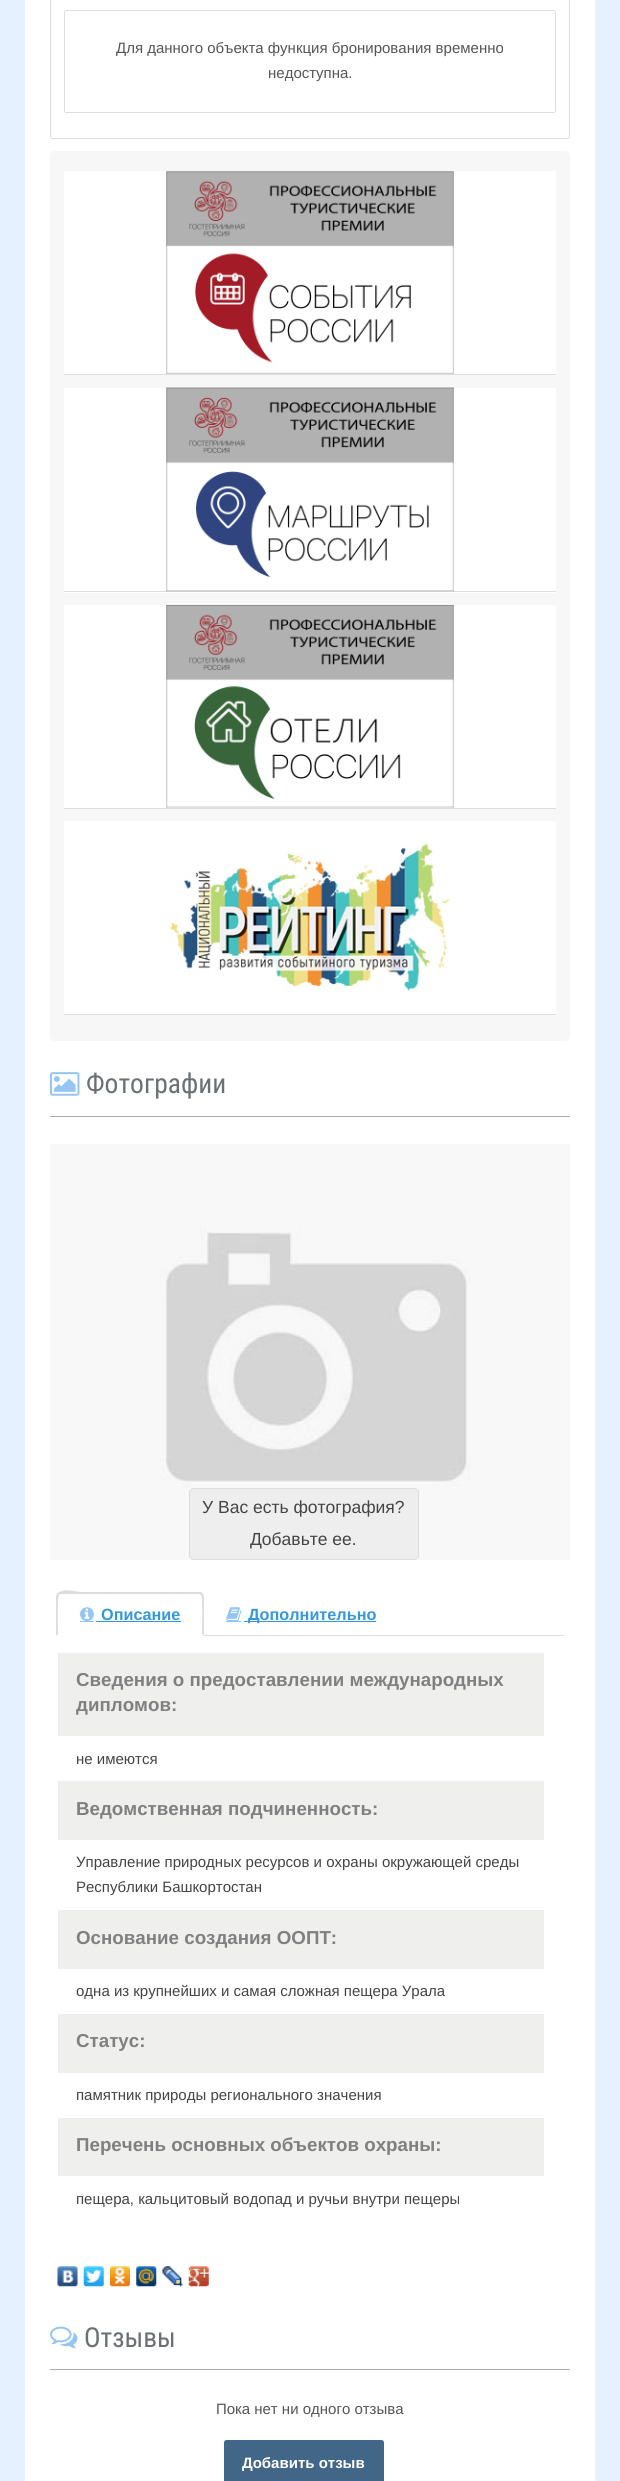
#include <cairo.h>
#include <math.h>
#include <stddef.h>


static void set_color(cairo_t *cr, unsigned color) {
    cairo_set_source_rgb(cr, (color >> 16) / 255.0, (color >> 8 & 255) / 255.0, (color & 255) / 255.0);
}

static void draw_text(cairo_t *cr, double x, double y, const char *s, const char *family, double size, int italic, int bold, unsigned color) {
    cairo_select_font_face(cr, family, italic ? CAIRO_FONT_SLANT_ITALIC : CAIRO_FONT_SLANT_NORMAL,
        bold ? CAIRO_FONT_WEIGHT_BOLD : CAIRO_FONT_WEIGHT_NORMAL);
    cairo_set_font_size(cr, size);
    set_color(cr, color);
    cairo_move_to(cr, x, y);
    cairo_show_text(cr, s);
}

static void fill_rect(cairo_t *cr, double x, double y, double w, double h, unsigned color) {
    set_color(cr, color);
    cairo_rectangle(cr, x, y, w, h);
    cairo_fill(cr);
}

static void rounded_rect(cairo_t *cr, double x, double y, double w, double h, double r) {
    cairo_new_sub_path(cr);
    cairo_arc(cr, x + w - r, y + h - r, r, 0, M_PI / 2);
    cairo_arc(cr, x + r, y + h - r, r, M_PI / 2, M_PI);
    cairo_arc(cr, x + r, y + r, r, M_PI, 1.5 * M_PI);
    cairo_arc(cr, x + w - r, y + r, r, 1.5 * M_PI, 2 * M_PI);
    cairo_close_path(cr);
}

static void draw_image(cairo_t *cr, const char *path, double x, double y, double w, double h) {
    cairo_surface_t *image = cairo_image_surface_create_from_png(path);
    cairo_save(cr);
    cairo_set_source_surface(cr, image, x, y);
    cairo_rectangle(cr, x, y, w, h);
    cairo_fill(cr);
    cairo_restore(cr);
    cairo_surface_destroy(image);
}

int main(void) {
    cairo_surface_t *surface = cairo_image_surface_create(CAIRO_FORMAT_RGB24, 620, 2481);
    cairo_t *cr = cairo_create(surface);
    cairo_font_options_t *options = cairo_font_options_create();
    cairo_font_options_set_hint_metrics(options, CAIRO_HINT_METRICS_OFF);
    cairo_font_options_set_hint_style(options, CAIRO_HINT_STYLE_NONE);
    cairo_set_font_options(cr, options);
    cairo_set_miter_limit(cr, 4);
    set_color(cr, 0xE5F1FF);
    cairo_paint(cr);
    fill_rect(cr, 25, 0, 570, 2481, 0xFFFFFF);
    rounded_rect(cr, 50.5, -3.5, 519, 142, 2);
    set_color(cr, 0xDDDDDD);
    cairo_set_line_width(cr, 1);
    cairo_stroke(cr);
    rounded_rect(cr, 64.5, 10.5, 491, 102, 2);
    cairo_stroke(cr);
    draw_text(cr, 116, 53, "Для данного объекта функция бронирования временно", "Liberation Sans", 15, 0, 0, 0x555555);
    draw_text(cr, 268, 78, "недоступна.", "Liberation Sans", 15, 0, 0, 0x555555);
    set_color(cr, 0xF7F7F7);
    rounded_rect(cr, 50, 151, 520, 890, 5);
    cairo_fill(cr);
    fill_rect(cr, 64, 171, 492, 203, 0xFFFFFF);
    fill_rect(cr, 64, 374, 492, 1, 0xDDDDDD);
    draw_image(cr, "assets/img1.png", 166, 171, 288, 203);
    fill_rect(cr, 64, 388, 492, 205, 0xFFFFFF);
    fill_rect(cr, 64, 591, 492, 1, 0xDDDDDD);
    draw_image(cr, "assets/img2.png", 166, 387, 288, 205);
    fill_rect(cr, 64, 605, 492, 203, 0xFFFFFF);
    fill_rect(cr, 64, 808, 492, 1, 0xDDDDDD);
    draw_image(cr, "assets/img3.png", 166, 605, 288, 203);
    fill_rect(cr, 64, 821, 492, 193, 0xFFFFFF);
    fill_rect(cr, 64, 1014, 492, 1, 0xDDDDDD);
    draw_image(cr, "assets/img4.png", 169, 843, 281, 148);
    draw_image(cr, "assets/img5.png", 50, 1072, 30, 24);
    draw_text(cr, 86, 1093, "Фотографии", "Roboto Condensed", 27.5, 0, 0, 0x6B7075);
    fill_rect(cr, 50, 1116, 520, 1, 0xAAAAAA);
    draw_image(cr, "assets/img6.png", 50, 1144, 520, 416);
    set_color(cr, 0xEEEEEE);
    rounded_rect(cr, 189.5, 1488.5, 229, 71, 4.5);
    cairo_fill_preserve(cr);
    set_color(cr, 0xDDDDDD);
    cairo_stroke(cr);
    draw_text(cr, 202, 1513, "У Вас есть фотография?", "Liberation Sans", 17.5, 0, 0, 0x444444);
    draw_text(cr, 250, 1545, "Добавьте ее.", "Liberation Sans", 17.5, 0, 0, 0x444444);
    fill_rect(cr, 204, 1635, 360, 1, 0xDDDDDD);
    cairo_new_path(cr);
    cairo_move_to(cr, 61, 1594);
    cairo_line_to(cr, 59, 1595);
    cairo_line_to(cr, 57, 1594);
    cairo_curve_to(cr, 63, 1587, 74, 1592, 83, 1592);
    cairo_line_to(cr, 201, 1592);
    cairo_line_to(cr, 203, 1594);
    cairo_line_to(cr, 201, 1595);
    cairo_line_to(cr, 199, 1594);
    cairo_close_path(cr);
    cairo_fill(cr);
    cairo_new_path(cr);
    cairo_move_to(cr, 204, 1636);
    cairo_line_to(cr, 202, 1634);
    cairo_curve_to(cr, 202, 1629, 203, 1597, 201, 1595);
    cairo_line_to(cr, 203, 1594);
    cairo_line_to(cr, 204, 1596);
    cairo_close_path(cr);
    cairo_fill(cr);
    set_color(cr, 0xFFFFFF);
    cairo_new_path(cr);
    cairo_move_to(cr, 204, 1636);
    cairo_line_to(cr, 56, 1636);
    cairo_line_to(cr, 58, 1634);
    cairo_line_to(cr, 58, 1635);
    cairo_line_to(cr, 202, 1635);
    cairo_line_to(cr, 202, 1634);
    cairo_close_path(cr);
    cairo_fill(cr);
    set_color(cr, 0xDDDDDD);
    cairo_new_path(cr);
    cairo_move_to(cr, 56, 1596);
    cairo_line_to(cr, 57, 1594);
    cairo_line_to(cr, 59, 1595);
    cairo_curve_to(cr, 57, 1597, 58, 1629, 58, 1634);
    cairo_line_to(cr, 56, 1636);
    cairo_close_path(cr);
    cairo_fill(cr);
    set_color(cr, 0xFFFFFF);
    cairo_new_path(cr);
    cairo_move_to(cr, 63, 1594);
    cairo_line_to(cr, 195, 1594);
    cairo_curve_to(cr, 198, 1594, 200, 1596, 200, 1599);
    cairo_line_to(cr, 200, 1636);
    cairo_line_to(cr, 58, 1636);
    cairo_line_to(cr, 58, 1599);
    cairo_curve_to(cr, 58, 1596, 60, 1594, 63, 1594);
    cairo_close_path(cr);
    cairo_fill(cr);
    fill_rect(cr, 80, 1621, 14, 1, 0x94C5F3);
    draw_image(cr, "assets/img7.png", 80, 1607, 14, 14);
    draw_text(cr, 101, 1620, "Описание", "Liberation Sans", 16.25, 0, 1, 0x3498DB);
    fill_rect(cr, 96, 1621, 85, 1, 0x3498DB);
    fill_rect(cr, 226, 1621, 15, 1, 0x94C5F3);
    draw_image(cr, "assets/img8.png", 226, 1607, 16, 14);
    fill_rect(cr, 244, 1621, 132, 1, 0x3498DB);
    draw_text(cr, 248, 1620, "Дополнительно", "Liberation Sans", 16.25, 0, 1, 0x3498DB);
    fill_rect(cr, 58, 1653, 486, 83, 0xEFF0EE);
    draw_text(cr, 76, 1686, "Сведения о предоставлении международных", "Liberation Sans", 18.75, 0, 1, 0x808080);
    draw_text(cr, 76, 1711, "дипломов:", "Liberation Sans", 18.75, 0, 1, 0x808080);
    draw_text(cr, 76, 1764, "не имеются", "Liberation Sans", 15, 0, 0, 0x444444);
    fill_rect(cr, 58, 1781, 486, 59, 0xEFF0EE);
    draw_text(cr, 76, 1815, "Ведомственная подчиненность:", "Liberation Sans", 18.75, 0, 1, 0x808080);
    draw_text(cr, 76, 1867, "Управление природных ресурсов и охраны окружающей среды", "Liberation Sans", 15, 0, 0, 0x444444);
    draw_text(cr, 76, 1892, "Республики Башкортостан", "Liberation Sans", 15, 0, 0, 0x444444);
    fill_rect(cr, 58, 1910, 486, 59, 0xEFF0EE);
    draw_text(cr, 76, 1944, "Основание создания ООПТ:", "Liberation Sans", 18.75, 0, 1, 0x808080);
    draw_text(cr, 76, 1996, "одна из крупнейших и самая сложная пещера Урала", "Liberation Sans", 15, 0, 0, 0x444444);
    fill_rect(cr, 58, 2014, 486, 59, 0xEFF0EE);
    draw_text(cr, 76, 2047, "Статус:", "Liberation Sans", 18.75, 0, 1, 0x808080);
    draw_text(cr, 76, 2100, "памятник природы регионального значения", "Liberation Sans", 15, 0, 0, 0x444444);
    fill_rect(cr, 58, 2118, 486, 58, 0xEFF0EE);
    draw_text(cr, 76, 2151, "Перечень основных объектов охраны:", "Liberation Sans", 18.75, 0, 1, 0x808080);
    draw_text(cr, 76, 2204, "пещера, кальцитовый водопад и ручьи внутри пещеры", "Liberation Sans", 15, 0, 0, 0x444444);
    draw_image(cr, "assets/img9.png", 57, 2266, 21, 21);
    draw_image(cr, "assets/img10.png", 83, 2266, 21, 21);
    draw_image(cr, "assets/img11.png", 110, 2266, 20, 21);
    draw_image(cr, "assets/img12.png", 136, 2266, 21, 21);
    draw_image(cr, "assets/img13.png", 162, 2266, 21, 21);
    draw_image(cr, "assets/img14.png", 188, 2266, 21, 21);
    draw_image(cr, "assets/img15.png", 50, 2326, 28, 23);
    draw_text(cr, 84, 2347, "Отзывы", "Roboto Condensed", 27.5, 0, 0, 0x6B7075);
    fill_rect(cr, 50, 2369, 520, 1, 0xAAAAAA);
    draw_text(cr, 216, 2414, "Пока нет ни одного отзыва", "Liberation Sans", 15, 0, 0, 0x555555);
    set_color(cr, 0x416688);
    rounded_rect(cr, 224, 2440, 160, 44, 2.5);
    cairo_fill(cr);
    draw_text(cr, 242, 2468, "Добавить отзыв", "Liberation Sans", 15, 0, 1, 0xFFFFFF);
    cairo_surface_write_to_png(surface, "output.png");
    cairo_font_options_destroy(options);
    cairo_destroy(cr);
    cairo_surface_destroy(surface);
    return 0;
}
